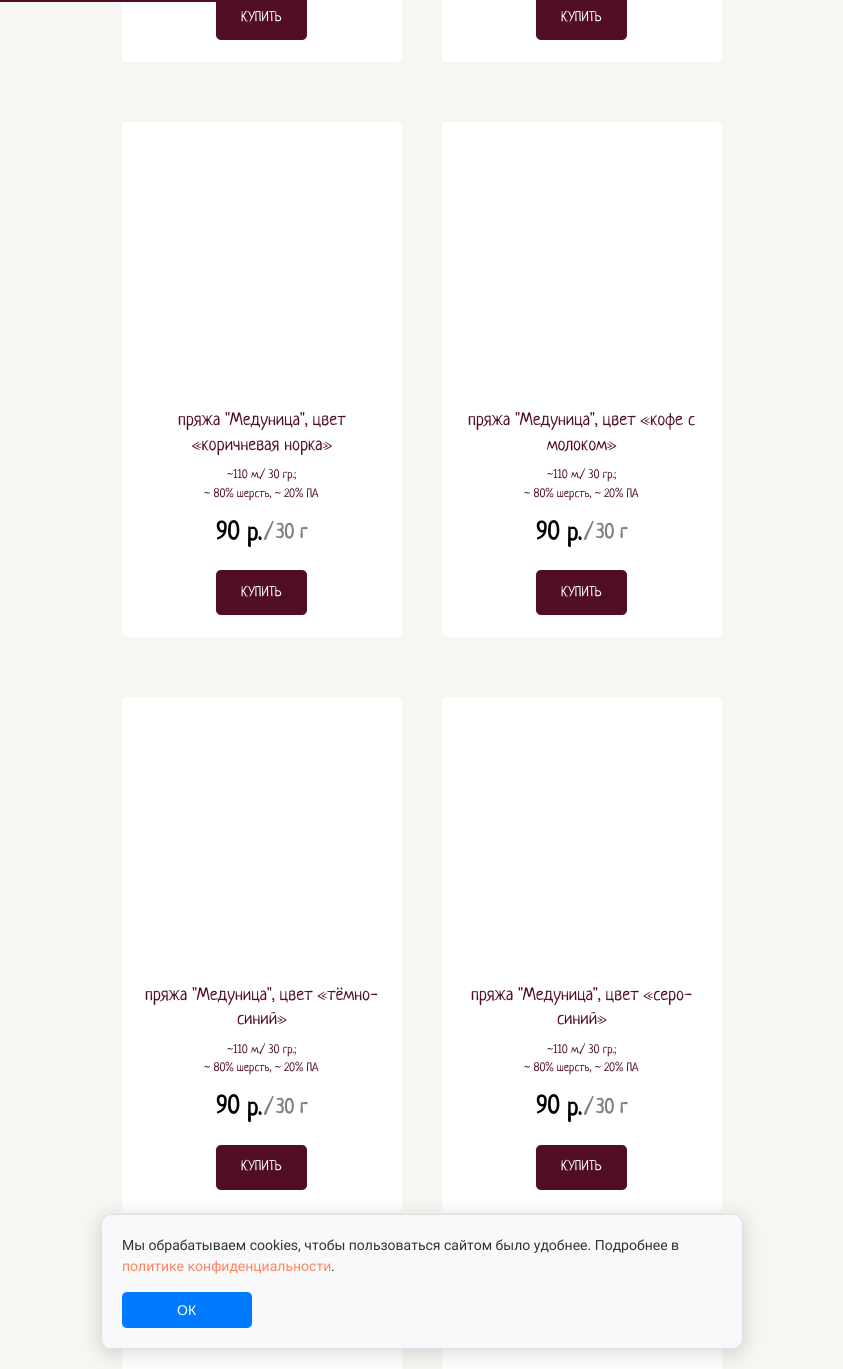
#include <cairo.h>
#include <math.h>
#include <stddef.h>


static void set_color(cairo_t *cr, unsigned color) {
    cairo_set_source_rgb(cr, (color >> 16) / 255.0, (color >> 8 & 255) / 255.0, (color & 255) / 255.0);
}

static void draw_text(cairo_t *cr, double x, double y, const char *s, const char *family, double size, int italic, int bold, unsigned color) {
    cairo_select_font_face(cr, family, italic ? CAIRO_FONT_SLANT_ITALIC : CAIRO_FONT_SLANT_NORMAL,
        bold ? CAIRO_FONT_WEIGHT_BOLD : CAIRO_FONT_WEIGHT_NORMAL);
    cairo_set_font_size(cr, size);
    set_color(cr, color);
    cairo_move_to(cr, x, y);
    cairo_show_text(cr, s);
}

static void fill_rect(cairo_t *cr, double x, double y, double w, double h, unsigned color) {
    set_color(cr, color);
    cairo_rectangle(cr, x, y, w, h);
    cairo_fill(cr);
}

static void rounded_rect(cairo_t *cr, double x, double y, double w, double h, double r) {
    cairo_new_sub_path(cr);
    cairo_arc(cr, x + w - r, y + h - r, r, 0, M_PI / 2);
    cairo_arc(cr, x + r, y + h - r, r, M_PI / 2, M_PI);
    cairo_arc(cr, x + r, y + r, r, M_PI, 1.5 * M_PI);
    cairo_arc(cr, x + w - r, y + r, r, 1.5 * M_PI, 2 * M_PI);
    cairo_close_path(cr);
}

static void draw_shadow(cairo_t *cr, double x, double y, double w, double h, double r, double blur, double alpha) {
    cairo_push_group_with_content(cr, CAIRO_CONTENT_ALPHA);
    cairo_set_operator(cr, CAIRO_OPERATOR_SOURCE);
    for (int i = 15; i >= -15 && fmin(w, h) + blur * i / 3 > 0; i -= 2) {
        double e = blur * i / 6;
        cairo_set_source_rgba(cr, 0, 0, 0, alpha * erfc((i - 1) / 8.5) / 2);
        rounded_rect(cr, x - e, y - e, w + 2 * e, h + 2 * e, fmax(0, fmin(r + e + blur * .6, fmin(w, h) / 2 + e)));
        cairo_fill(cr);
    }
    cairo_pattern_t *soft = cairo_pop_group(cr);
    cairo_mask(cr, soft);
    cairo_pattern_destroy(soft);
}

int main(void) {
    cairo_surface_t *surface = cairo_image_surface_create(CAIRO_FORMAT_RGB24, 843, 1369);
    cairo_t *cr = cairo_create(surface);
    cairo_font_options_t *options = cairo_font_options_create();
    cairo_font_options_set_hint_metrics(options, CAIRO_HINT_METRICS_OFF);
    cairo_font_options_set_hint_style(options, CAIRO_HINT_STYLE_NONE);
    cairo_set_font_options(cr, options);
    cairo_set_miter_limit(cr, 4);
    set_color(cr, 0xF6F6F2);
    cairo_paint(cr);
    set_color(cr, 0xFFFFFF);
    rounded_rect(cr, 122, -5, 280, 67, 5);
    cairo_fill(cr);
    fill_rect(cr, 0, 0, 216, 2, 0x510D24);
    rounded_rect(cr, 216, -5, 91, 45, 5);
    cairo_fill(cr);
    draw_text(cr, 241, 21, "КУПИТЬ", "Neucha", 14, 0, 0, 0xFFFFFF);
    rounded_rect(cr, 442, -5, 280, 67, 5);
    cairo_fill(cr);
    set_color(cr, 0x510D24);
    rounded_rect(cr, 536, -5, 91, 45, 5);
    cairo_fill(cr);
    draw_text(cr, 561, 21, "КУПИТЬ", "Neucha", 14, 0, 0, 0xFFFFFF);
    rounded_rect(cr, 122, 122, 280, 515, 5);
    cairo_fill(cr);
    draw_text(cr, 178, 425, "пряжа \"Медуница\", цвет", "Neucha", 18, 0, 0, 0x510D24);
    draw_text(cr, 192, 450, "«коричневая норка»", "Neucha", 18, 0, 0, 0x510D24);
    draw_text(cr, 227, 478, "~110 м./ 30 гр.;", "Neucha", 12, 0, 0, 0x510D24);
    draw_text(cr, 204, 497, "~ 80% шерсть, ~ 20% ПА", "Neucha", 12, 0, 0, 0x510D24);
    draw_text(cr, 216, 539, "90", "Neucha", 25, 0, 1, 0x000000);
    draw_text(cr, 247, 540, "р.", "Neucha", 25, 0, 1, 0x000000);
    draw_text(cr, 264, 538, "/", "Neucha", 20, 0, 1, 0x808080);
    draw_text(cr, 276, 538, "30 г", "Neucha", 20, 0, 1, 0x808080);
    set_color(cr, 0x510D24);
    rounded_rect(cr, 216, 570, 91, 45, 5);
    cairo_fill(cr);
    draw_text(cr, 241, 596, "КУПИТЬ", "Neucha", 14, 0, 0, 0xFFFFFF);
    rounded_rect(cr, 442, 122, 280, 515, 5);
    cairo_fill(cr);
    draw_text(cr, 468, 425, "пряжа \"Медуница\", цвет «кофе с", "Neucha", 18, 0, 0, 0x510D24);
    draw_text(cr, 547, 450, "молоком»", "Neucha", 18, 0, 0, 0x510D24);
    draw_text(cr, 547, 478, "~110 м./ 30 гр.;", "Neucha", 12, 0, 0, 0x510D24);
    draw_text(cr, 524, 497, "~ 80% шерсть, ~ 20% ПА", "Neucha", 12, 0, 0, 0x510D24);
    draw_text(cr, 536, 539, "90", "Neucha", 25, 0, 1, 0x000000);
    draw_text(cr, 567, 540, "р.", "Neucha", 25, 0, 1, 0x000000);
    draw_text(cr, 584, 538, "/", "Neucha", 20, 0, 1, 0x808080);
    draw_text(cr, 596, 538, "30 г", "Neucha", 20, 0, 1, 0x808080);
    set_color(cr, 0x510D24);
    rounded_rect(cr, 536, 570, 91, 45, 5);
    cairo_fill(cr);
    draw_text(cr, 561, 596, "КУПИТЬ", "Neucha", 14, 0, 0, 0xFFFFFF);
    rounded_rect(cr, 122, 697, 280, 515, 5);
    cairo_fill(cr);
    draw_text(cr, 145, 1000, "пряжа \"Медуница\", цвет «тёмно-", "Neucha", 18, 0, 0, 0x510D24);
    draw_text(cr, 237, 1024, "синий»", "Neucha", 18, 0, 0, 0x510D24);
    draw_text(cr, 227, 1053, "~110 м./ 30 гр.;", "Neucha", 12, 0, 0, 0x510D24);
    draw_text(cr, 204, 1071, "~ 80% шерсть, ~ 20% ПА", "Neucha", 12, 0, 0, 0x510D24);
    draw_text(cr, 216, 1113, "90", "Neucha", 25, 0, 1, 0x000000);
    draw_text(cr, 247, 1115, "р.", "Neucha", 25, 0, 1, 0x000000);
    draw_text(cr, 264, 1113, "/", "Neucha", 20, 0, 1, 0x808080);
    draw_text(cr, 276, 1113, "30 г", "Neucha", 20, 0, 1, 0x808080);
    set_color(cr, 0x510D24);
    rounded_rect(cr, 216, 1145, 91, 45, 5);
    cairo_fill(cr);
    draw_text(cr, 241, 1170, "КУПИТЬ", "Neucha", 14, 0, 0, 0xFFFFFF);
    rounded_rect(cr, 442, 697, 280, 515, 5);
    cairo_fill(cr);
    draw_text(cr, 471, 1000, "пряжа \"Медуница\", цвет «серо-", "Neucha", 18, 0, 0, 0x510D24);
    draw_text(cr, 557, 1024, "синий»", "Neucha", 18, 0, 0, 0x510D24);
    draw_text(cr, 547, 1053, "~110 м./ 30 гр.;", "Neucha", 12, 0, 0, 0x510D24);
    draw_text(cr, 524, 1071, "~ 80% шерсть, ~ 20% ПА", "Neucha", 12, 0, 0, 0x510D24);
    draw_text(cr, 536, 1113, "90", "Neucha", 25, 0, 1, 0x000000);
    draw_text(cr, 567, 1115, "р.", "Neucha", 25, 0, 1, 0x000000);
    draw_text(cr, 584, 1113, "/", "Neucha", 20, 0, 1, 0x808080);
    draw_text(cr, 596, 1113, "30 г", "Neucha", 20, 0, 1, 0x808080);
    set_color(cr, 0x510D24);
    rounded_rect(cr, 536, 1145, 91, 45, 5);
    cairo_fill(cr);
    draw_text(cr, 561, 1170, "КУПИТЬ", "Neucha", 14, 0, 0, 0xFFFFFF);
    fill_rect(cr, 122, 1349, 280, 20, 0xFFFFFF);
    fill_rect(cr, 442, 1349, 280, 20, 0xFFFFFF);
    set_color(cr, 0x000000);
    draw_shadow(cr, 101, 1218, 642, 135, 10, 10, 0.15);
    set_color(cr, 0xF8F9FA);
    rounded_rect(cr, 101.5, 1214.5, 641, 134, 9.5);
    cairo_fill_preserve(cr);
    set_color(cr, 0xDEE2E6);
    cairo_set_line_width(cr, 1);
    cairo_stroke(cr);
    draw_text(cr, 122, 1250, "Мы обрабатываем cookies, чтобы пользоваться сайтом было удобнее. Подробнее в", "Roboto", 14, 0, 0, 0x333333);
    draw_text(cr, 122, 1271, "политике конфиденциальности", "Roboto", 14, 0, 0, 0xFF8562);
    draw_text(cr, 331, 1271, ".", "Roboto", 14, 0, 0, 0x333333);
    set_color(cr, 0x007BFF);
    rounded_rect(cr, 122, 1292, 130, 36, 5);
    cairo_fill(cr);
    draw_text(cr, 177, 1315, "ОК", "Liberation Sans", 14, 0, 0, 0xFFFFFF);
    cairo_surface_write_to_png(surface, "output.png");
    cairo_font_options_destroy(options);
    cairo_destroy(cr);
    cairo_surface_destroy(surface);
    return 0;
}
